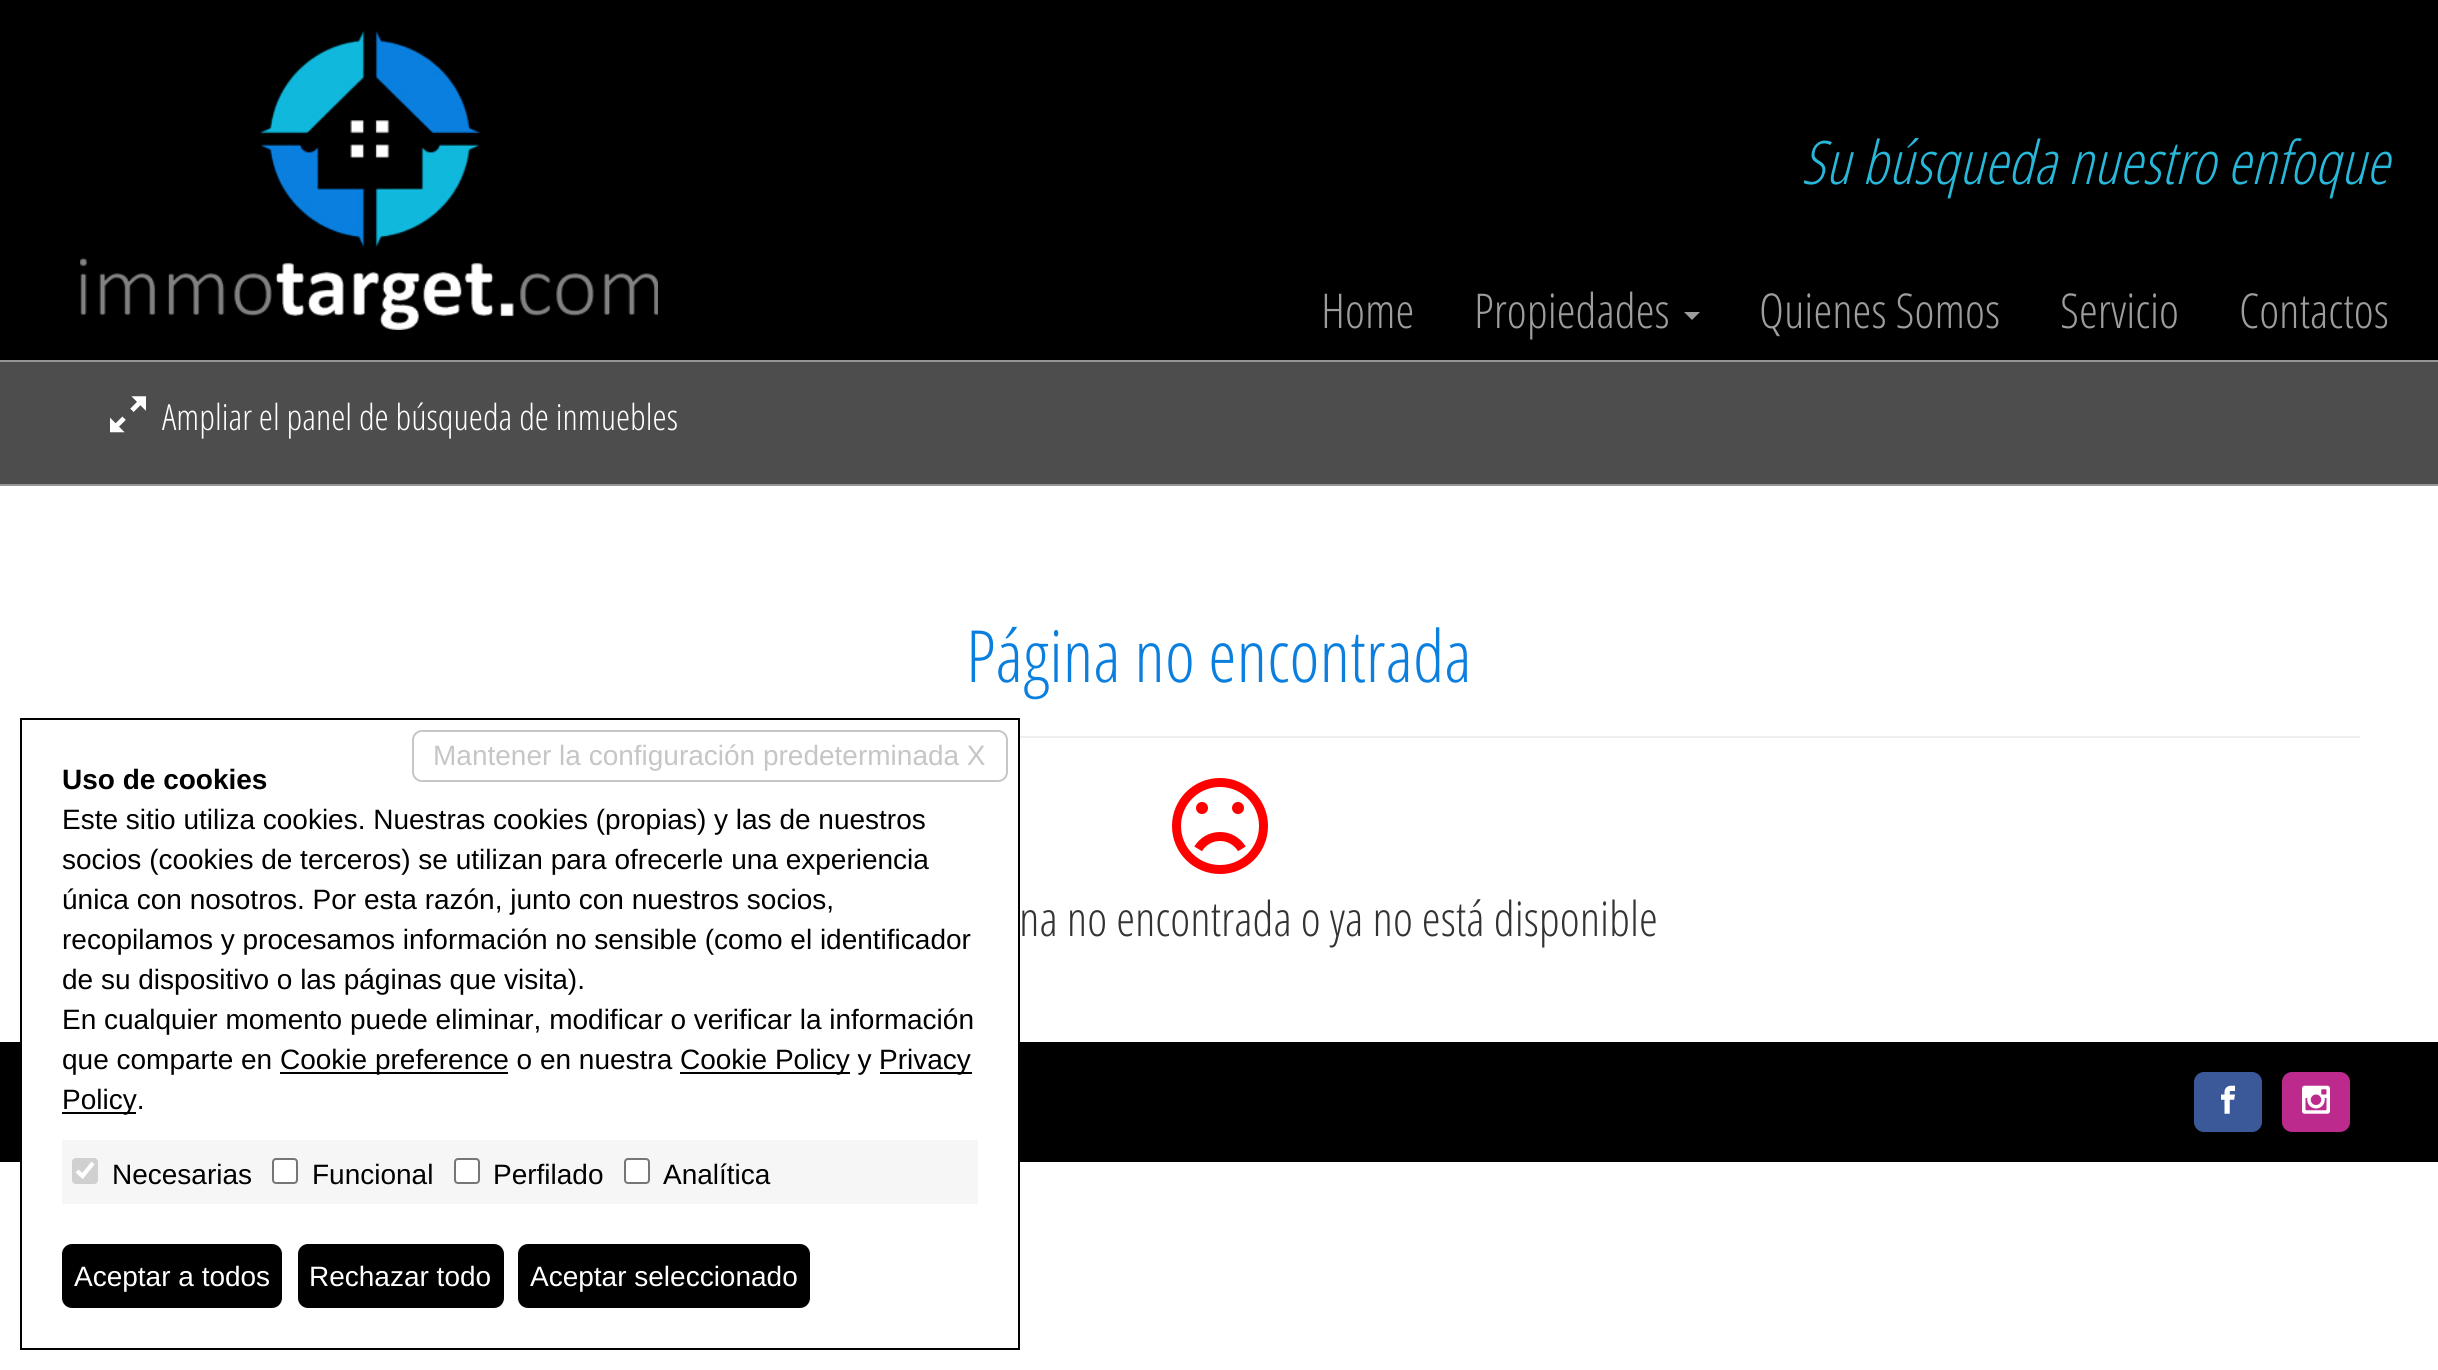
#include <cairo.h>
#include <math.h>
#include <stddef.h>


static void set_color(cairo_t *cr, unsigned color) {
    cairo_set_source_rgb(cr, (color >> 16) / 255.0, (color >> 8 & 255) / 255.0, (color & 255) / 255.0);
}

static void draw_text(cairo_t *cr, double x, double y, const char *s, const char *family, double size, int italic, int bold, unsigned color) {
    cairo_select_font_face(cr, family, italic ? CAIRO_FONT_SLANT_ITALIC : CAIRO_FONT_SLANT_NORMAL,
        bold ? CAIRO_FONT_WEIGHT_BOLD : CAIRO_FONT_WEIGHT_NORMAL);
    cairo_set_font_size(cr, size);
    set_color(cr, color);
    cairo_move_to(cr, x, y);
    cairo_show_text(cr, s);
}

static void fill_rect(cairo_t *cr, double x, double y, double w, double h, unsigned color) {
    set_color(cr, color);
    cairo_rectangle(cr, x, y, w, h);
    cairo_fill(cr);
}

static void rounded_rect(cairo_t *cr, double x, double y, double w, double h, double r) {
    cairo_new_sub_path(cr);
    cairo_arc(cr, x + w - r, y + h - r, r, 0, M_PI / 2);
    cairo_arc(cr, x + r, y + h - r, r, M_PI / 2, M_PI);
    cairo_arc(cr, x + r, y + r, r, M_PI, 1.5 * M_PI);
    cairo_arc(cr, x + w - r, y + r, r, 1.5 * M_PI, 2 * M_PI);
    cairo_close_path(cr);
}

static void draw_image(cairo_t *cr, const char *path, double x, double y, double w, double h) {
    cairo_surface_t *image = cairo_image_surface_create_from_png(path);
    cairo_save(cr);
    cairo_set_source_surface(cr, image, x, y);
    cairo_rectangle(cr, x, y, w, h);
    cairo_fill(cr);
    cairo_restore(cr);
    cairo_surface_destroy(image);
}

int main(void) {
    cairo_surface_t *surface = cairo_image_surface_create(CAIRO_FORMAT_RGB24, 2438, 1370);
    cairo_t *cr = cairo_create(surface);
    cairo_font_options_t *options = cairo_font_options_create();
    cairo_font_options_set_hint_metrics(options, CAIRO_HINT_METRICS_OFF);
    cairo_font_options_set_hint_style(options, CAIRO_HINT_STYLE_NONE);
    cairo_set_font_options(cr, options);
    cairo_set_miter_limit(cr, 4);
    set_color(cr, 0xFFFFFF);
    cairo_paint(cr);
    fill_rect(cr, 0, 0, 2438, 360, 0x000000);
    fill_rect(cr, 0, 360, 2438, 2, 0x969696);
    draw_image(cr, "assets/img1.png", 80, 31, 578, 299);
    draw_text(cr, 1801, 184, "Su búsqueda nuestro enfoque", "Open Sans Condensed Light", 60, 1, 0, 0x28B8DA);
    draw_text(cr, 1321, 328, "Home", "Open Sans Condensed Light", 48, 0, 0, 0x9D9D9D);
    draw_text(cr, 1474, 328, "Propiedades", "Open Sans Condensed Light", 48, 0, 0, 0x9D9D9D);
    cairo_new_path(cr);
    cairo_move_to(cr, 1684, 312);
    cairo_line_to(cr, 1700, 312);
    cairo_line_to(cr, 1692, 320);
    cairo_close_path(cr);
    cairo_fill(cr);
    draw_text(cr, 1759, 328, "Quienes Somos", "Open Sans Condensed Light", 48, 0, 0, 0x9D9D9D);
    draw_text(cr, 2060, 328, "Servicio", "Open Sans Condensed Light", 48, 0, 0, 0x9D9D9D);
    draw_text(cr, 2239, 328, "Contactos", "Open Sans Condensed Light", 48, 0, 0, 0x9D9D9D);
    fill_rect(cr, 0, 362, 2438, 122, 0x4D4D4D);
    fill_rect(cr, 0, 484, 2438, 2, 0x969696);
    draw_image(cr, "assets/img2.png", 110, 396, 36, 37);
    draw_text(cr, 162, 430, "Ampliar el panel de búsqueda de inmuebles", "Open Sans Condensed Light", 36, 0, 0, 0xFFFFFF);
    fill_rect(cr, 0, 1042, 2438, 120, 0x000000);
    fill_rect(cr, 22, 1042, 996, 120, 0xFFFFFF);
    cairo_rectangle(cr, 21, 719, 998, 630);
    set_color(cr, 0x000000);
    cairo_stroke(cr);
    rounded_rect(cr, 413, 731, 594, 50, 9);
    set_color(cr, 0xC6C6C6);
    cairo_stroke(cr);
    draw_text(cr, 433, 765, "Mantener la configuración predeterminada X", "Liberation Sans", 28, 0, 0, 0xC6C6C6);
    draw_text(cr, 62, 789, "Uso de cookies", "Liberation Sans", 28, 0, 1, 0x000000);
    draw_text(cr, 62, 829, "Este sitio utiliza cookies. Nuestras cookies (propias) y las de nuestros", "Liberation Sans", 28, 0, 0, 0x000000);
    draw_text(cr, 62, 869, "socios (cookies de terceros) se utilizan para ofrecerle una experiencia", "Liberation Sans", 28, 0, 0, 0x000000);
    draw_text(cr, 62, 909, "única con nosotros. Por esta razón, junto con nuestros socios,", "Liberation Sans", 28, 0, 0, 0x000000);
    draw_text(cr, 62, 949, "recopilamos y procesamos información no sensible (como el identificador", "Liberation Sans", 28, 0, 0, 0x000000);
    draw_text(cr, 62, 989, "de su dispositivo o las páginas que visita).", "Liberation Sans", 28, 0, 0, 0x000000);
    draw_text(cr, 62, 1029, "En cualquier momento puede eliminar, modificar o verificar la información", "Liberation Sans", 28, 0, 0, 0x000000);
    draw_text(cr, 62, 1069, "que comparte en", "Liberation Sans", 28, 0, 0, 0x000000);
    fill_rect(cr, 280, 1072, 228, 2, 0x000000);
    draw_text(cr, 280, 1069, "Cookie preference o en nuestra", "Liberation Sans", 28, 0, 0, 0x000000);
    fill_rect(cr, 680, 1072, 170, 2, 0x000000);
    draw_text(cr, 680, 1069, "Cookie Policy y", "Liberation Sans", 28, 0, 0, 0x000000);
    fill_rect(cr, 880, 1072, 92, 2, 0x000000);
    draw_text(cr, 879, 1069, "Privacy", "Liberation Sans", 28, 0, 0, 0x000000);
    fill_rect(cr, 62, 1112, 74, 2, 0x000000);
    draw_text(cr, 62, 1109, "Policy.", "Liberation Sans", 28, 0, 0, 0x000000);
    fill_rect(cr, 62, 1140, 916, 64, 0xF6F6F6);
    set_color(cr, 0xD0D0D0);
    rounded_rect(cr, 72, 1158, 26, 26, 4);
    cairo_fill(cr);
    cairo_new_path(cr);
    cairo_move_to(cr, 77, 1171);
    cairo_line_to(cr, 82.5, 1176);
    cairo_line_to(cr, 93, 1163);
    set_color(cr, 0xFFFFFF);
    cairo_set_line_width(cr, 4.2);
    cairo_stroke(cr);
    draw_text(cr, 112, 1184, "Necesarias", "Liberation Sans", 28, 0, 0, 0x000000);
    set_color(cr, 0xFFFFFF);
    rounded_rect(cr, 273, 1159, 24, 24, 3);
    cairo_fill_preserve(cr);
    set_color(cr, 0x767676);
    cairo_set_line_width(cr, 2);
    cairo_stroke(cr);
    draw_text(cr, 312, 1184, "Funcional", "Liberation Sans", 28, 0, 0, 0x000000);
    set_color(cr, 0xFFFFFF);
    rounded_rect(cr, 455, 1159, 24, 24, 3);
    cairo_fill_preserve(cr);
    set_color(cr, 0x767676);
    cairo_stroke(cr);
    draw_text(cr, 493, 1184, "Perfilado", "Liberation Sans", 28, 0, 0, 0x000000);
    set_color(cr, 0xFFFFFF);
    rounded_rect(cr, 625, 1159, 24, 24, 3);
    cairo_fill_preserve(cr);
    set_color(cr, 0x767676);
    cairo_stroke(cr);
    draw_text(cr, 663, 1184, "Analítica", "Liberation Sans", 28, 0, 0, 0x000000);
    rounded_rect(cr, 63, 1245, 218, 62, 9);
    cairo_fill_preserve(cr);
    cairo_stroke(cr);
    draw_text(cr, 74, 1286, "Aceptar a todos", "Liberation Sans", 28, 0, 0, 0xFFFFFF);
    set_color(cr, 0x000000);
    rounded_rect(cr, 299, 1245, 204, 62, 9);
    cairo_fill_preserve(cr);
    cairo_stroke(cr);
    draw_text(cr, 309, 1286, "Rechazar todo", "Liberation Sans", 28, 0, 0, 0xFFFFFF);
    set_color(cr, 0x000000);
    rounded_rect(cr, 519, 1245, 290, 62, 9);
    cairo_fill_preserve(cr);
    cairo_stroke(cr);
    draw_text(cr, 530, 1286, "Aceptar seleccionado", "Liberation Sans", 28, 0, 0, 0xFFFFFF);
    draw_text(cr, 966, 682, "Página no encontrada", "Open Sans Condensed Light", 72, 0, 0, 0x0A7FDF);
    fill_rect(cr, 1020, 736, 1340, 2, 0xEEEEEE);
    draw_image(cr, "assets/img3.png", 1172, 778, 96, 96);
    draw_text(cr, 1019, 936, "na no encontrada o ya no está disponible", "Open Sans Condensed Light", 48, 0, 0, 0x333333);
    set_color(cr, 0x3B5998);
    rounded_rect(cr, 2194, 1072, 68, 60, 10);
    cairo_fill(cr);
    draw_image(cr, "assets/img4.png", 2221, 1085, 14, 29);
    set_color(cr, 0xBC2A8D);
    rounded_rect(cr, 2282, 1072, 68, 60, 10);
    cairo_fill(cr);
    draw_image(cr, "assets/img5.png", 2302, 1085, 28, 29);
    cairo_surface_write_to_png(surface, "output.png");
    cairo_font_options_destroy(options);
    cairo_destroy(cr);
    cairo_surface_destroy(surface);
    return 0;
}
